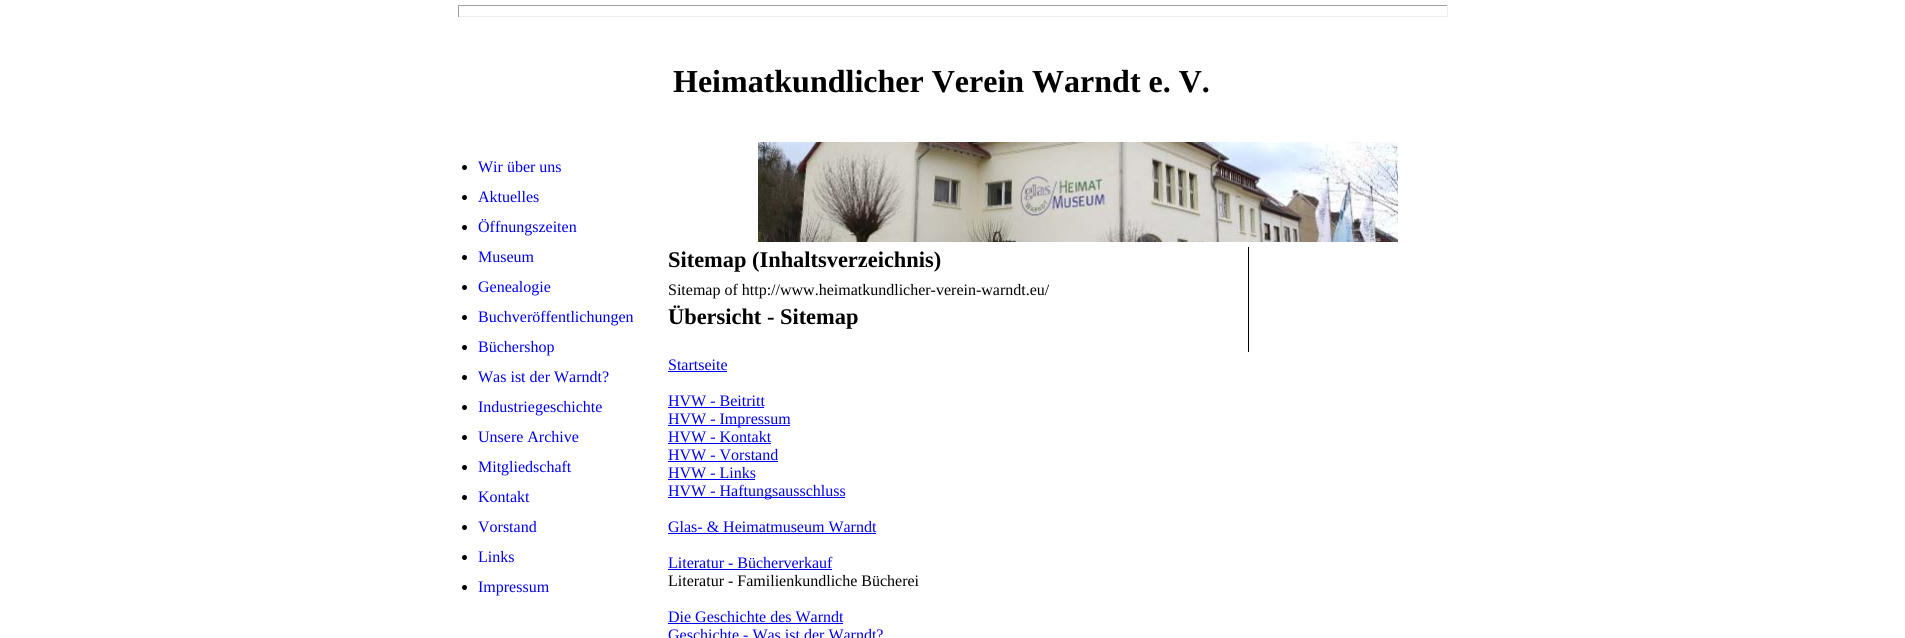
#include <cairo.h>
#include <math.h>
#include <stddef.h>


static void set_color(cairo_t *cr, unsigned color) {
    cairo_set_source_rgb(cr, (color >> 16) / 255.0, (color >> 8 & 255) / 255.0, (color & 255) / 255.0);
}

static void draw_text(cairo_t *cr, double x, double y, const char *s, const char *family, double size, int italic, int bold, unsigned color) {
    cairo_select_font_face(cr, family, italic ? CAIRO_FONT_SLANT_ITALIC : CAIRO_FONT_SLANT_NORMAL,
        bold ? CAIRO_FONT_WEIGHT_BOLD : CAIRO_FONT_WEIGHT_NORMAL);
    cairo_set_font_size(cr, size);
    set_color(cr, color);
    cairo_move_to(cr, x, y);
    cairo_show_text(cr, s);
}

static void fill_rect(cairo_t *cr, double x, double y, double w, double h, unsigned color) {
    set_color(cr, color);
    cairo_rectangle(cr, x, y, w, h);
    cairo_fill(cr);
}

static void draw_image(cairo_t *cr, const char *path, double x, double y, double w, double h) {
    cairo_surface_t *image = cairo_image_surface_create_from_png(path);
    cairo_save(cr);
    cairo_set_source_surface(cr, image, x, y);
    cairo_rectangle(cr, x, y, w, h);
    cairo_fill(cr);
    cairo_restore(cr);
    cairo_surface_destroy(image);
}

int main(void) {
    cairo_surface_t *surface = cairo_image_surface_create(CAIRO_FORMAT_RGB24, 1905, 638);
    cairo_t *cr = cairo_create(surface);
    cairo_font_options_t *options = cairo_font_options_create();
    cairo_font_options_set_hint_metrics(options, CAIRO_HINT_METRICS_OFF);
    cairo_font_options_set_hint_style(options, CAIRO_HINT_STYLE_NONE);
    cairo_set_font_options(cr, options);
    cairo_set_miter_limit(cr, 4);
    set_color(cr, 0xFFFFFF);
    cairo_paint(cr);
    fill_rect(cr, 458, 5, 990, 1, 0x9F9F9F);
    fill_rect(cr, 1447, 5, 1, 12, 0xEEEEEE);
    fill_rect(cr, 458, 16, 990, 1, 0xEEEEEE);
    fill_rect(cr, 458, 5, 1, 12, 0x9F9F9F);
    draw_text(cr, 673, 92, "Heimatkundlicher Verein Warndt e. V.", "Liberation Serif", 32, 0, 1, 0x000000);
    cairo_new_path(cr);
    cairo_arc(cr, 464.5, 167.5, 2.5, 0, 2 * M_PI);
    cairo_fill(cr);
    draw_text(cr, 478, 172, "Wir über uns", "Liberation Serif", 16, 0, 0, 0x0000EE);
    set_color(cr, 0x000000);
    cairo_new_path(cr);
    cairo_arc(cr, 464.5, 197.5, 2.5, 0, 2 * M_PI);
    cairo_fill(cr);
    draw_text(cr, 478, 202, "Aktuelles", "Liberation Serif", 16, 0, 0, 0x0000EE);
    set_color(cr, 0x000000);
    cairo_new_path(cr);
    cairo_arc(cr, 464.5, 227.5, 2.5, 0, 2 * M_PI);
    cairo_fill(cr);
    draw_text(cr, 478, 232, "Öffnungszeiten", "Liberation Serif", 16, 0, 0, 0x0000EE);
    set_color(cr, 0x000000);
    cairo_new_path(cr);
    cairo_arc(cr, 464.5, 257.5, 2.5, 0, 2 * M_PI);
    cairo_fill(cr);
    draw_text(cr, 478, 262, "Museum", "Liberation Serif", 16, 0, 0, 0x0000EE);
    set_color(cr, 0x000000);
    cairo_new_path(cr);
    cairo_arc(cr, 464.5, 287.5, 2.5, 0, 2 * M_PI);
    cairo_fill(cr);
    draw_text(cr, 478, 292, "Genealogie", "Liberation Serif", 16, 0, 0, 0x0000EE);
    set_color(cr, 0x000000);
    cairo_new_path(cr);
    cairo_arc(cr, 464.5, 317.5, 2.5, 0, 2 * M_PI);
    cairo_fill(cr);
    draw_text(cr, 478, 322, "Buchveröffentlichungen", "Liberation Serif", 16, 0, 0, 0x0000EE);
    set_color(cr, 0x000000);
    cairo_new_path(cr);
    cairo_arc(cr, 464.5, 347.5, 2.5, 0, 2 * M_PI);
    cairo_fill(cr);
    draw_text(cr, 478, 352, "Büchershop", "Liberation Serif", 16, 0, 0, 0x0000EE);
    set_color(cr, 0x000000);
    cairo_new_path(cr);
    cairo_arc(cr, 464.5, 377.5, 2.5, 0, 2 * M_PI);
    cairo_fill(cr);
    draw_text(cr, 478, 382, "Was ist der Warndt?", "Liberation Serif", 16, 0, 0, 0x0000EE);
    set_color(cr, 0x000000);
    cairo_new_path(cr);
    cairo_arc(cr, 464.5, 407.5, 2.5, 0, 2 * M_PI);
    cairo_fill(cr);
    draw_text(cr, 478, 412, "Industriegeschichte", "Liberation Serif", 16, 0, 0, 0x0000EE);
    set_color(cr, 0x000000);
    cairo_new_path(cr);
    cairo_arc(cr, 464.5, 437.5, 2.5, 0, 2 * M_PI);
    cairo_fill(cr);
    draw_text(cr, 478, 442, "Unsere Archive", "Liberation Serif", 16, 0, 0, 0x0000EE);
    set_color(cr, 0x000000);
    cairo_new_path(cr);
    cairo_arc(cr, 464.5, 467.5, 2.5, 0, 2 * M_PI);
    cairo_fill(cr);
    draw_text(cr, 478, 472, "Mitgliedschaft", "Liberation Serif", 16, 0, 0, 0x0000EE);
    set_color(cr, 0x000000);
    cairo_new_path(cr);
    cairo_arc(cr, 464.5, 497.5, 2.5, 0, 2 * M_PI);
    cairo_fill(cr);
    draw_text(cr, 478, 502, "Kontakt", "Liberation Serif", 16, 0, 0, 0x0000EE);
    set_color(cr, 0x000000);
    cairo_new_path(cr);
    cairo_arc(cr, 464.5, 527.5, 2.5, 0, 2 * M_PI);
    cairo_fill(cr);
    draw_text(cr, 478, 532, "Vorstand", "Liberation Serif", 16, 0, 0, 0x0000EE);
    set_color(cr, 0x000000);
    cairo_new_path(cr);
    cairo_arc(cr, 464.5, 557.5, 2.5, 0, 2 * M_PI);
    cairo_fill(cr);
    draw_text(cr, 478, 562, "Links", "Liberation Serif", 16, 0, 0, 0x0000EE);
    set_color(cr, 0x000000);
    cairo_new_path(cr);
    cairo_arc(cr, 464.5, 587.5, 2.5, 0, 2 * M_PI);
    cairo_fill(cr);
    draw_text(cr, 478, 592, "Impressum", "Liberation Serif", 16, 0, 0, 0x0000EE);
    draw_image(cr, "assets/img1.png", 758, 142, 640, 100);
    draw_text(cr, 668, 267, "Sitemap (Inhaltsverzeichnis)", "Liberation Serif", 22.4, 0, 1, 0x000000);
    draw_text(cr, 668, 295, "Sitemap of http://www.heimatkundlicher-verein-warndt.eu/", "Liberation Serif", 16, 0, 0, 0x000000);
    draw_text(cr, 668, 324, "Übersicht - Sitemap", "Liberation Serif", 22.4, 0, 1, 0x000000);
    draw_text(cr, 668, 370, "Startseite", "Liberation Serif", 16, 0, 0, 0x0000EE);
    fill_rect(cr, 668, 371, 59, 1, 0x0000EE);
    draw_text(cr, 668, 406, "HVW - Beitritt", "Liberation Serif", 16, 0, 0, 0x0000EE);
    fill_rect(cr, 668, 407, 96, 1, 0x0000EE);
    fill_rect(cr, 668, 425, 122, 1, 0x0000EE);
    draw_text(cr, 668, 424, "HVW - Impressum", "Liberation Serif", 16, 0, 0, 0x0000EE);
    draw_text(cr, 668, 442, "HVW - Kontakt", "Liberation Serif", 16, 0, 0, 0x0000EE);
    fill_rect(cr, 668, 443, 103, 1, 0x0000EE);
    draw_text(cr, 668, 460, "HVW - Vorstand", "Liberation Serif", 16, 0, 0, 0x0000EE);
    fill_rect(cr, 668, 461, 110, 1, 0x0000EE);
    draw_text(cr, 668, 478, "HVW - Links", "Liberation Serif", 16, 0, 0, 0x0000EE);
    fill_rect(cr, 668, 479, 87, 1, 0x0000EE);
    fill_rect(cr, 668, 497, 177, 1, 0x0000EE);
    draw_text(cr, 668, 496, "HVW - Haftungsausschluss", "Liberation Serif", 16, 0, 0, 0x0000EE);
    draw_text(cr, 668, 532, "Glas- & Heimatmuseum Warndt", "Liberation Serif", 16, 0, 0, 0x0000EE);
    fill_rect(cr, 668, 533, 208, 1, 0x0000EE);
    draw_text(cr, 668, 568, "Literatur - Bücherverkauf", "Liberation Serif", 16, 0, 0, 0x0000EE);
    fill_rect(cr, 668, 569, 164, 1, 0x0000EE);
    draw_text(cr, 668, 586, "Literatur - Familienkundliche Bücherei", "Liberation Serif", 16, 0, 0, 0x000000);
    draw_text(cr, 668, 622, "Die Geschichte des Warndt", "Liberation Serif", 16, 0, 0, 0x0000EE);
    fill_rect(cr, 668, 623, 175, 1, 0x0000EE);
    draw_text(cr, 668, 640, "Geschichte - Was ist der Warndt?", "Liberation Serif", 16, 0, 0, 0x0000EE);
    fill_rect(cr, 1248, 247, 1, 105, 0x000000);
    cairo_surface_write_to_png(surface, "output.png");
    cairo_font_options_destroy(options);
    cairo_destroy(cr);
    cairo_surface_destroy(surface);
    return 0;
}
